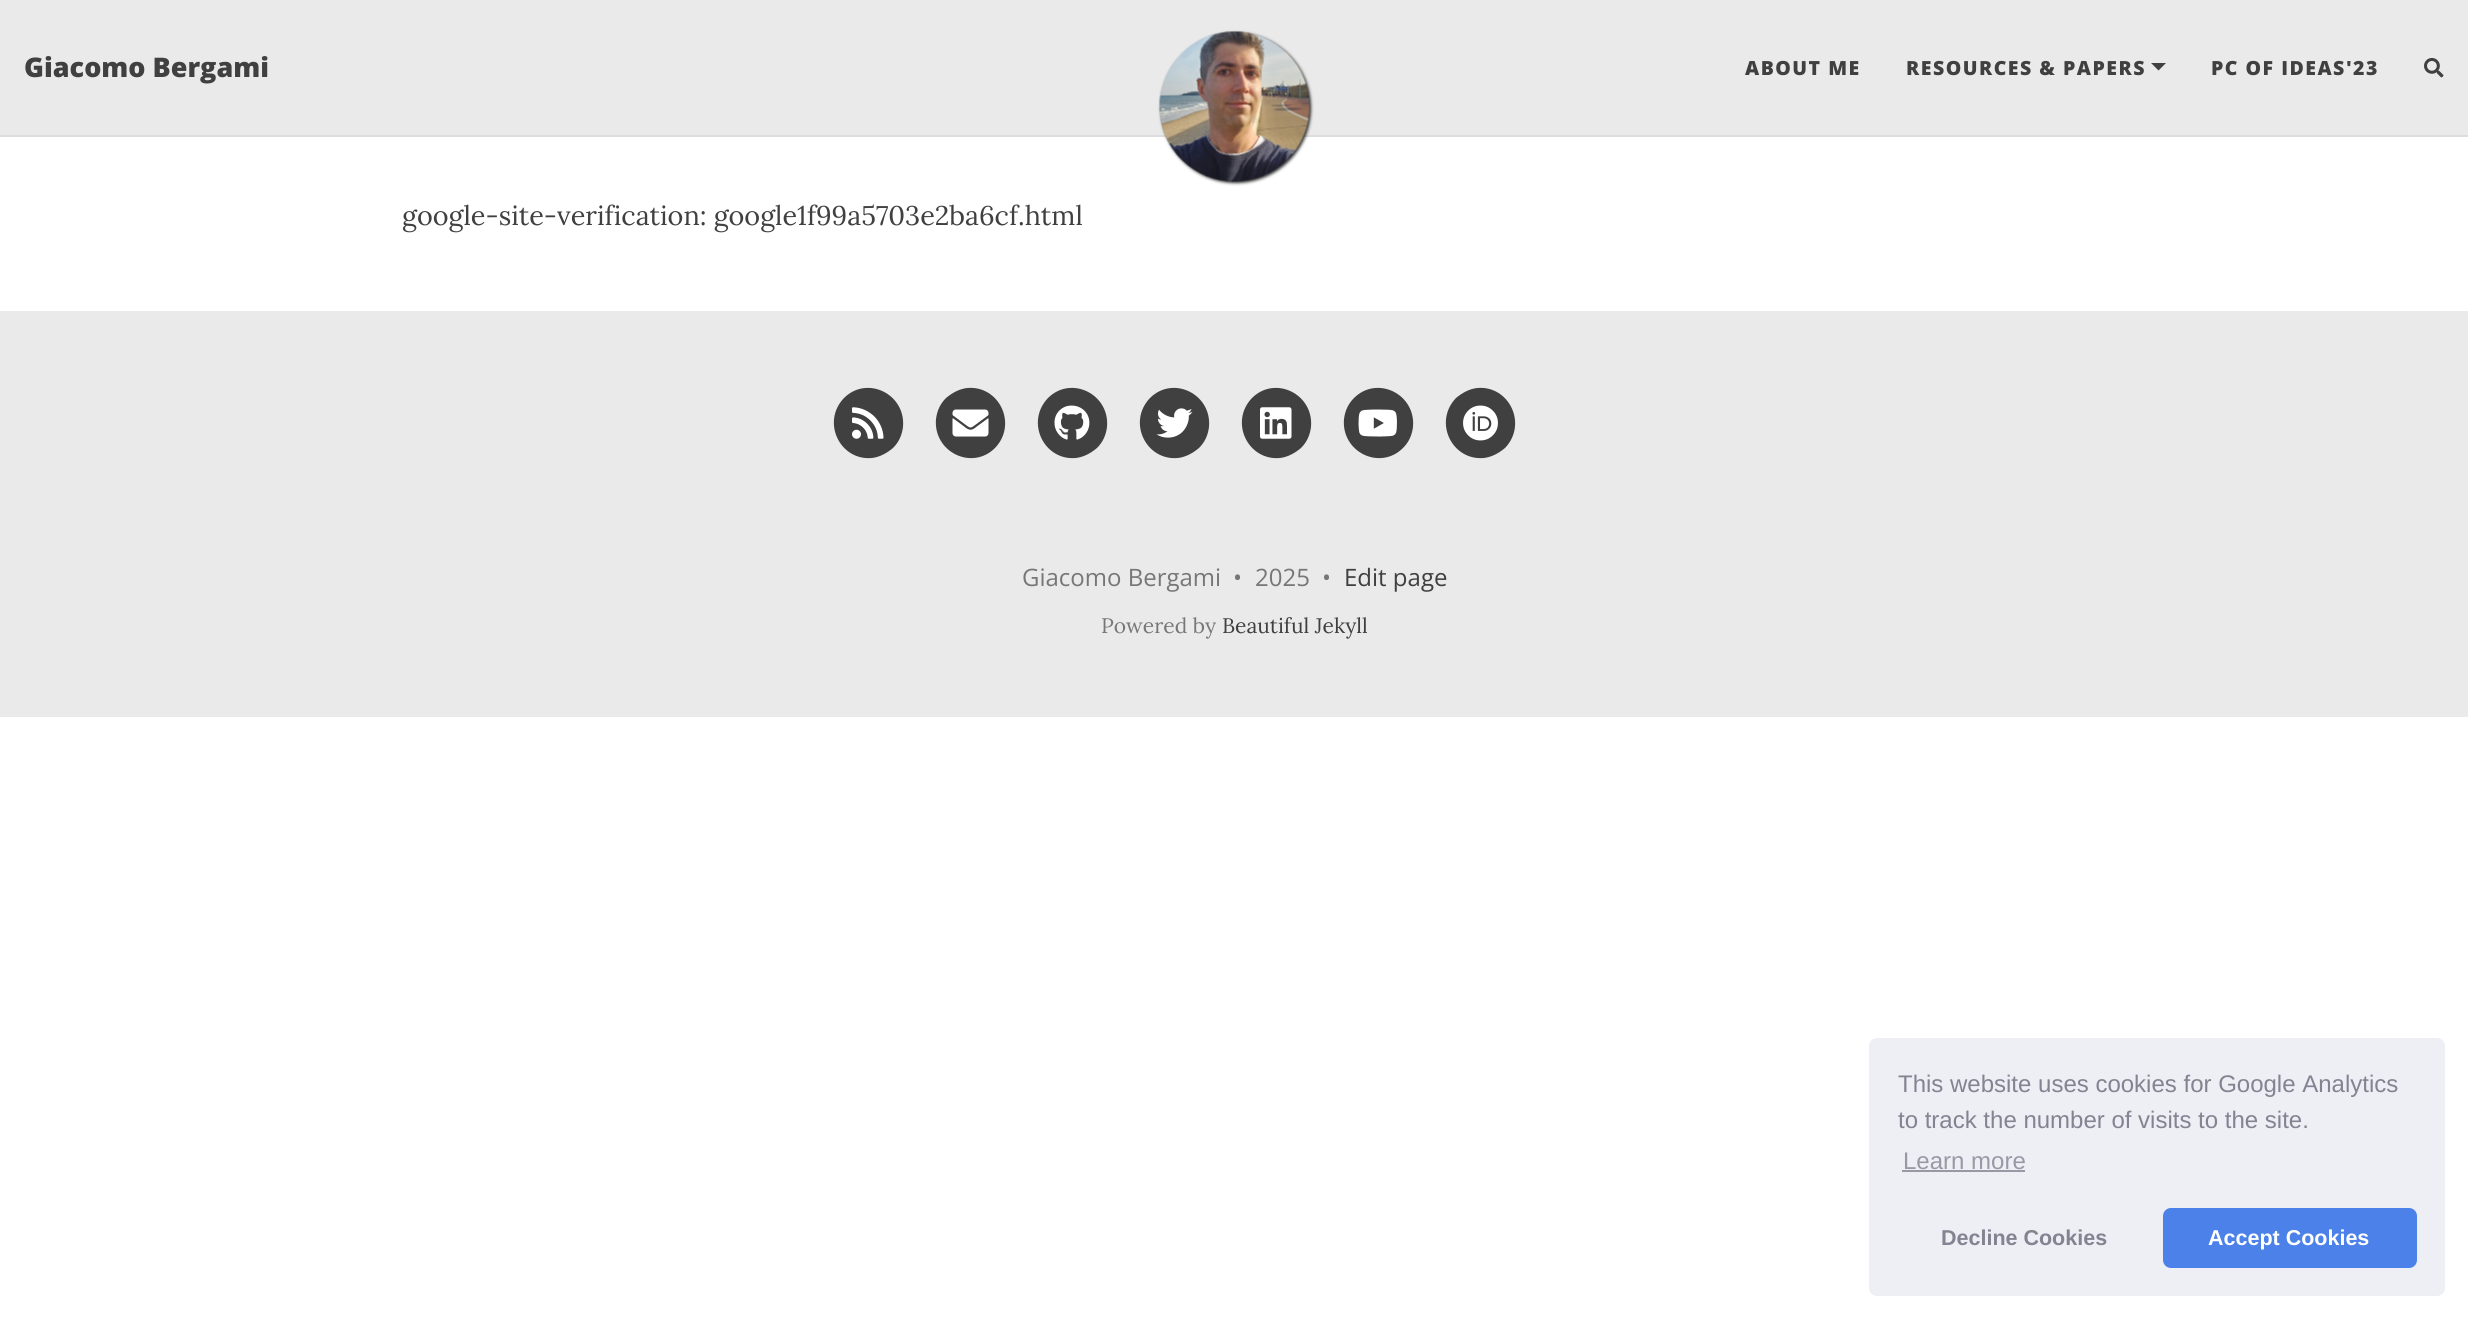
#include <cairo.h>
#include <math.h>
#include <stddef.h>


static void set_color(cairo_t *cr, unsigned color) {
    cairo_set_source_rgb(cr, (color >> 16) / 255.0, (color >> 8 & 255) / 255.0, (color & 255) / 255.0);
}

static void draw_text(cairo_t *cr, double x, double y, const char *s, const char *family, double size, int italic, int bold, unsigned color) {
    cairo_select_font_face(cr, family, italic ? CAIRO_FONT_SLANT_ITALIC : CAIRO_FONT_SLANT_NORMAL,
        bold ? CAIRO_FONT_WEIGHT_BOLD : CAIRO_FONT_WEIGHT_NORMAL);
    cairo_set_font_size(cr, size);
    set_color(cr, color);
    cairo_move_to(cr, x, y);
    cairo_show_text(cr, s);
}

static void draw_spaced(cairo_t *cr, double x, double y, const char *s, double letter, double word) {
    cairo_move_to(cr, x, y);
    while (*s) {
        char ch[5] = {0};
        int n = 0;
        do ch[n++] = *s++; while ((*s & 0xC0) == 0x80);
        cairo_show_text(cr, ch);
        cairo_rel_move_to(cr, letter + word * (*ch == ' '), 0);
    }
}

static void fill_rect(cairo_t *cr, double x, double y, double w, double h, unsigned color) {
    set_color(cr, color);
    cairo_rectangle(cr, x, y, w, h);
    cairo_fill(cr);
}

static void rounded_rect(cairo_t *cr, double x, double y, double w, double h, double r) {
    cairo_new_sub_path(cr);
    cairo_arc(cr, x + w - r, y + h - r, r, 0, M_PI / 2);
    cairo_arc(cr, x + r, y + h - r, r, M_PI / 2, M_PI);
    cairo_arc(cr, x + r, y + r, r, M_PI, 1.5 * M_PI);
    cairo_arc(cr, x + w - r, y + r, r, 1.5 * M_PI, 2 * M_PI);
    cairo_close_path(cr);
}

static void draw_shadow(cairo_t *cr, double x, double y, double w, double h, double r, double blur, double alpha) {
    cairo_push_group_with_content(cr, CAIRO_CONTENT_ALPHA);
    cairo_set_operator(cr, CAIRO_OPERATOR_SOURCE);
    for (int i = 15; i >= -15 && fmin(w, h) + blur * i / 3 > 0; i -= 2) {
        double e = blur * i / 6;
        cairo_set_source_rgba(cr, 0, 0, 0, alpha * erfc((i - 1) / 8.5) / 2);
        rounded_rect(cr, x - e, y - e, w + 2 * e, h + 2 * e, fmax(0, fmin(r + e + blur * .6, fmin(w, h) / 2 + e)));
        cairo_fill(cr);
    }
    cairo_pattern_t *soft = cairo_pop_group(cr);
    cairo_mask(cr, soft);
    cairo_pattern_destroy(soft);
}

static void draw_image(cairo_t *cr, const char *path, double x, double y, double w, double h) {
    cairo_surface_t *image = cairo_image_surface_create_from_png(path);
    cairo_save(cr);
    cairo_set_source_surface(cr, image, x, y);
    cairo_rectangle(cr, x, y, w, h);
    cairo_fill(cr);
    cairo_restore(cr);
    cairo_surface_destroy(image);
}

int main(void) {
    cairo_surface_t *surface = cairo_image_surface_create(CAIRO_FORMAT_RGB24, 2468, 1320);
    cairo_t *cr = cairo_create(surface);
    cairo_font_options_t *options = cairo_font_options_create();
    cairo_font_options_set_hint_metrics(options, CAIRO_HINT_METRICS_OFF);
    cairo_font_options_set_hint_style(options, CAIRO_HINT_STYLE_NONE);
    cairo_set_font_options(cr, options);
    cairo_set_miter_limit(cr, 4);
    set_color(cr, 0xFFFFFF);
    cairo_paint(cr);
    fill_rect(cr, 0, 0, 2468, 135, 0xEAEAEA);
    fill_rect(cr, 0, 135, 2468, 2, 0xDDDDDD);
    draw_text(cr, 24, 77, "Giacomo Bergami", "Open Sans ExtraBold", 27, 0, 0, 0x404040);
    set_color(cr, 0x000000);
    draw_shadow(cr, 1161, 33, 150, 150, 75, 1.5, 0.8);
    draw_image(cr, "assets/img1.png", 1159, 31, 151, 151);
    cairo_set_font_size(cr, 19.5);
    set_color(cr, 0x404040);
    draw_spaced(cr, 1745, 75, "ABOUT ME", 1.5, 0);
    draw_spaced(cr, 1906, 75, "RESOURCES & PAPERS", 1.5, 0);
    cairo_new_path(cr);
    cairo_move_to(cr, 2151, 63);
    cairo_line_to(cr, 2166, 63);
    cairo_line_to(cr, 2158.5, 70.5);
    cairo_close_path(cr);
    cairo_fill(cr);
    draw_spaced(cr, 2211, 75, "PC OF IDEAS'23", 1.5, 0);
    draw_image(cr, "assets/img2.png", 2424, 57, 20, 21);
    draw_text(cr, 402, 225, "google-site-verification: google1f99a5703e2ba6cf.html", "Lora", 27, 0, 0, 0x404040);
    fill_rect(cr, 0, 311, 2468, 406, 0xEAEAEA);
    set_color(cr, 0x404040);
    cairo_new_path(cr);
    cairo_move_to(cr, 844, 398);
    cairo_curve_to(cr, 867, 375, 906, 394, 903, 427);
    cairo_curve_to(cr, 902, 435, 899, 442, 893, 448);
    cairo_curve_to(cr, 887, 453, 880, 457, 872, 458);
    cairo_curve_to(cr, 840, 461, 821, 422, 844, 398);
    cairo_close_path(cr);
    cairo_fill(cr);
    draw_image(cr, "assets/img3.png", 852, 407, 32, 32);
    cairo_new_path(cr);
    cairo_move_to(cr, 946, 398);
    cairo_curve_to(cr, 952, 393, 959, 389, 967, 388);
    cairo_curve_to(cr, 999, 385, 1018, 424, 995, 448);
    cairo_curve_to(cr, 972, 471, 933, 452, 936, 419);
    cairo_curve_to(cr, 937, 411, 940, 404, 946, 398);
    cairo_close_path(cr);
    cairo_fill(cr);
    draw_image(cr, "assets/img4.png", 952, 409, 37, 28);
    cairo_new_path(cr);
    cairo_move_to(cr, 1048, 398);
    cairo_curve_to(cr, 1071, 375, 1110, 394, 1107, 427);
    cairo_curve_to(cr, 1106, 435, 1103, 442, 1097, 448);
    cairo_curve_to(cr, 1091, 453, 1084, 457, 1076, 458);
    cairo_curve_to(cr, 1044, 461, 1025, 422, 1048, 398);
    cairo_close_path(cr);
    cairo_fill(cr);
    draw_image(cr, "assets/img5.png", 1054, 405, 36, 35);
    cairo_new_path(cr);
    cairo_move_to(cr, 1150, 398);
    cairo_curve_to(cr, 1173, 375, 1212, 394, 1209, 427);
    cairo_curve_to(cr, 1208, 435, 1205, 442, 1199, 448);
    cairo_curve_to(cr, 1193, 453, 1186, 457, 1178, 458);
    cairo_curve_to(cr, 1146, 461, 1127, 422, 1150, 398);
    cairo_close_path(cr);
    cairo_fill(cr);
    draw_image(cr, "assets/img6.png", 1156, 408, 37, 30);
    cairo_new_path(cr);
    cairo_move_to(cr, 1252, 398);
    cairo_curve_to(cr, 1275, 375, 1314, 394, 1311, 427);
    cairo_curve_to(cr, 1310, 435, 1307, 442, 1301, 448);
    cairo_curve_to(cr, 1295, 453, 1288, 457, 1280, 458);
    cairo_curve_to(cr, 1248, 461, 1229, 422, 1252, 398);
    cairo_close_path(cr);
    cairo_fill(cr);
    draw_image(cr, "assets/img7.png", 1260, 407, 32, 32);
    cairo_new_path(cr);
    cairo_move_to(cr, 1354, 398);
    cairo_curve_to(cr, 1377, 375, 1416, 394, 1413, 427);
    cairo_curve_to(cr, 1412, 435, 1409, 442, 1403, 448);
    cairo_curve_to(cr, 1380, 471, 1341, 452, 1344, 419);
    cairo_curve_to(cr, 1345, 411, 1348, 404, 1354, 398);
    cairo_close_path(cr);
    cairo_fill(cr);
    draw_image(cr, "assets/img8.png", 1358, 409, 39, 28);
    cairo_new_path(cr);
    cairo_move_to(cr, 1456, 398);
    cairo_curve_to(cr, 1462, 393, 1469, 389, 1477, 388);
    cairo_curve_to(cr, 1509, 385, 1528, 424, 1505, 448);
    cairo_curve_to(cr, 1499, 453, 1492, 457, 1484, 458);
    cairo_curve_to(cr, 1452, 461, 1433, 422, 1456, 398);
    cairo_close_path(cr);
    cairo_fill(cr);
    draw_image(cr, "assets/img9.png", 1463, 405, 35, 36);
    draw_text(cr, 1022, 586, "Giacomo Bergami", "Open Sans", 24, 0, 0, 0x777777);
    draw_text(cr, 1233, 586, "•", "Open Sans", 24, 0, 0, 0x777777);
    draw_text(cr, 1255, 586, "2025", "Open Sans", 24, 0, 0, 0x777777);
    draw_text(cr, 1322, 586, "•", "Open Sans", 24, 0, 0, 0x777777);
    draw_text(cr, 1344, 586, "Edit page", "Open Sans", 24, 0, 0, 0x404040);
    draw_text(cr, 1101, 633, "Powered by", "Lora", 21, 0, 0, 0x777777);
    draw_text(cr, 1222, 633, "Beautiful Jekyll", "Lora", 21, 0, 0, 0x404040);
    set_color(cr, 0xEDEFF5);
    rounded_rect(cr, 1869, 1038, 576, 258, 8);
    cairo_fill(cr);
    draw_text(cr, 1898, 1092, "This website uses cookies for Google Analytics", "Liberation Sans", 24, 0, 0, 0x838391);
    draw_text(cr, 1898, 1128, "to track the number of visits to the site.", "Liberation Sans", 24, 0, 0, 0x838391);
    draw_text(cr, 1903, 1169, "Learn more", "Liberation Sans", 24, 0, 0, 0x9899A5);
    fill_rect(cr, 1902, 1170, 123, 2, 0x9899A5);
    draw_text(cr, 1941, 1245, "Decline Cookies", "Liberation Sans", 21.5, 0, 1, 0x838391);
    set_color(cr, 0x4B81E8);
    rounded_rect(cr, 2163, 1208, 254, 60, 8);
    cairo_fill(cr);
    draw_text(cr, 2208, 1245, "Accept Cookies", "Liberation Sans", 21.5, 0, 1, 0xFFFFFF);
    cairo_surface_write_to_png(surface, "output.png");
    cairo_font_options_destroy(options);
    cairo_destroy(cr);
    cairo_surface_destroy(surface);
    return 0;
}
